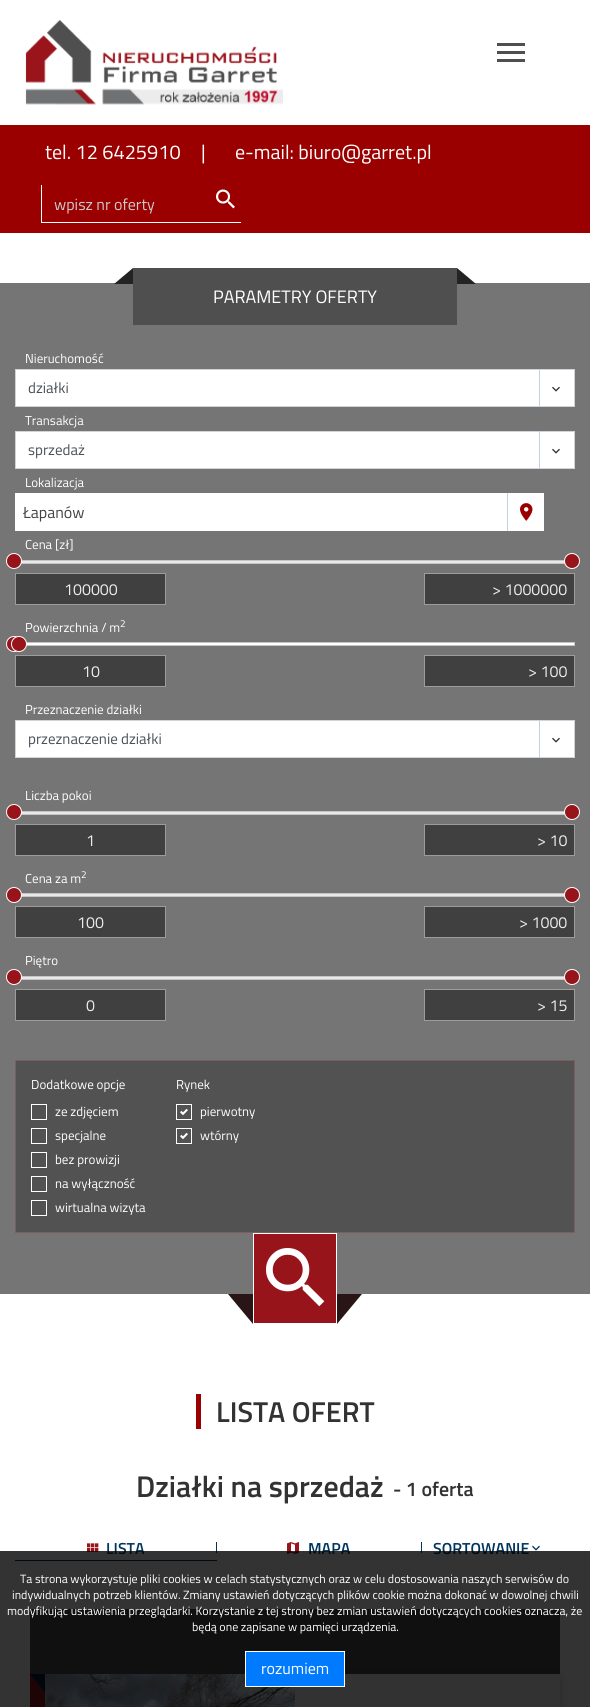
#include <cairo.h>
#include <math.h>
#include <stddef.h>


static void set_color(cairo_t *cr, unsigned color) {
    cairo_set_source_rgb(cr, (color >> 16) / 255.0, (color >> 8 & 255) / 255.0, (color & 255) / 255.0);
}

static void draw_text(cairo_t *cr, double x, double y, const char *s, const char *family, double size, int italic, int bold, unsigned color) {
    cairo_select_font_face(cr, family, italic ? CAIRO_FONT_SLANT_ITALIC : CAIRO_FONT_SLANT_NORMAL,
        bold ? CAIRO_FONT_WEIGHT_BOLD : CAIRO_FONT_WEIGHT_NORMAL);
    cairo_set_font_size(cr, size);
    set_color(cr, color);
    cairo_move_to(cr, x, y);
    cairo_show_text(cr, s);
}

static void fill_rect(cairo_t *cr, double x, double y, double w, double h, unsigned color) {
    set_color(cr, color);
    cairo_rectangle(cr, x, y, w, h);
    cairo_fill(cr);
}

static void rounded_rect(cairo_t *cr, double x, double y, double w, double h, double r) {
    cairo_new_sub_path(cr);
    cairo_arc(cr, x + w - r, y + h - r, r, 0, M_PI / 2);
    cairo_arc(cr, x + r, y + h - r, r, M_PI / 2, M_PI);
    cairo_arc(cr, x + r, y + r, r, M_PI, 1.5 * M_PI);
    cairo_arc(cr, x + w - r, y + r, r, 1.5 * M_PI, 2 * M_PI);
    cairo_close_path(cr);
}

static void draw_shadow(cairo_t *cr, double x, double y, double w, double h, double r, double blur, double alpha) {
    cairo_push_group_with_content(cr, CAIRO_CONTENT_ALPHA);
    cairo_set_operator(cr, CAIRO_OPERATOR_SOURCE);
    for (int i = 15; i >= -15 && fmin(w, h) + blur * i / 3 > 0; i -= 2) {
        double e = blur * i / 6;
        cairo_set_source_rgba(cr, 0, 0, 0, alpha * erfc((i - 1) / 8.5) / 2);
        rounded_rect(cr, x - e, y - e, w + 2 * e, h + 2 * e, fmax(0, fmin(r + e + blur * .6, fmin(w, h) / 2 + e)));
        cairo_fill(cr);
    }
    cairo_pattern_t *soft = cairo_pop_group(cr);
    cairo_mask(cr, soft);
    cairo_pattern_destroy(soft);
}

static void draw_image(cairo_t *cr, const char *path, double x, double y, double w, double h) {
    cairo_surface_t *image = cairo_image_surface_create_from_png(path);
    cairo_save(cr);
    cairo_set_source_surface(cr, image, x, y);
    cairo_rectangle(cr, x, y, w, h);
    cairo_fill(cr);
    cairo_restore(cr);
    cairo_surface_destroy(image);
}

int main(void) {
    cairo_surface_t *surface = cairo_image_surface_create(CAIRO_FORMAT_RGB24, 590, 1707);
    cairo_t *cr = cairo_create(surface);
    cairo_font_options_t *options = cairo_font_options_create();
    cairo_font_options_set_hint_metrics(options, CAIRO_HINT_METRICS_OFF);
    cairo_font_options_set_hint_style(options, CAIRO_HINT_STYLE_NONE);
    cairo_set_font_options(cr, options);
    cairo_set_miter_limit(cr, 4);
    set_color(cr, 0xFFFFFF);
    cairo_paint(cr);
    draw_image(cr, "assets/img1.png", 25, 20, 258, 85);
    fill_rect(cr, 497, 43, 28, 3, 0x4F4F4F);
    fill_rect(cr, 497, 51, 28, 3, 0x4F4F4F);
    fill_rect(cr, 497, 59, 28, 3, 0x4F4F4F);
    fill_rect(cr, 0, 125, 590, 108, 0x9A0000);
    draw_text(cr, 45, 159, "tel. 12 6425910", "Titillium Web", 20, 0, 0, 0xFFFFFF);
    draw_text(cr, 201, 159, "|", "Titillium Web", 20, 0, 0, 0xFFFFFF);
    draw_text(cr, 235, 159, "e-mail: biuro@garret.pl", "Titillium Web", 20, 0, 0, 0xFFFFFF);
    fill_rect(cr, 41, 222, 200, 1, 0xFFFFFF);
    fill_rect(cr, 41, 185, 1, 38, 0xFFFFFF);
    draw_text(cr, 54, 210, "wpisz nr oferty", "Titillium Web", 16, 0, 0, 0xCBCBCB);
    draw_image(cr, "assets/img2.png", 216, 189, 19, 20);
    fill_rect(cr, 0, 283, 590, 1011, 0x757575);
    set_color(cr, 0x232323);
    cairo_new_path(cr);
    cairo_move_to(cr, 133, 268);
    cairo_line_to(cr, 173, 268);
    cairo_line_to(cr, 154, 284);
    cairo_line_to(cr, 114, 284);
    cairo_close_path(cr);
    cairo_fill(cr);
    cairo_new_path(cr);
    cairo_move_to(cr, 417, 268);
    cairo_line_to(cr, 457, 268);
    cairo_line_to(cr, 476, 284);
    cairo_line_to(cr, 436, 284);
    cairo_close_path(cr);
    cairo_fill(cr);
    fill_rect(cr, 133, 268, 324, 57, 0x4F4F4F);
    draw_text(cr, 213, 303, "PARAMETRY OFERTY", "Titillium Web", 18, 0, 0, 0xFFFFFF);
    draw_text(cr, 25, 363, "Nieruchomość", "Titillium Web", 13, 0, 0, 0xFFFFFF);
    fill_rect(cr, 16, 370, 558, 36, 0xFFFFFF);
    draw_image(cr, "assets/img3.png", 552, 386, 8, 6);
    cairo_rectangle(cr, 15.5, 369.5, 559, 37);
    set_color(cr, 0xCED4DA);
    cairo_set_line_width(cr, 1);
    cairo_stroke(cr);
    draw_text(cr, 28, 393, "działki", "Titillium Web", 15, 0, 0, 0x495057);
    fill_rect(cr, 539, 369, 1, 38, 0xC1D2DB);
    draw_text(cr, 25, 425, "Transakcja", "Titillium Web", 13, 0, 0, 0xFFFFFF);
    fill_rect(cr, 16, 432, 558, 36, 0xFFFFFF);
    draw_image(cr, "assets/img3.png", 552, 448, 8, 6);
    cairo_rectangle(cr, 15.5, 431.5, 559, 37);
    set_color(cr, 0xCED4DA);
    cairo_stroke(cr);
    draw_text(cr, 28, 455, "sprzedaż", "Titillium Web", 15, 0, 0, 0x495057);
    fill_rect(cr, 539, 431, 1, 38, 0xC1D2DB);
    draw_text(cr, 25, 487, "Lokalizacja", "Titillium Web", 13, 0, 0, 0xFFFFFF);
    fill_rect(cr, 15, 493, 492, 38, 0xFFFFFF);
    draw_text(cr, 23, 518, "Łapanów", "Titillium Web", 16, 0, 0, 0x444444);
    fill_rect(cr, 508, 493, 36, 38, 0xFFFFFF);
    fill_rect(cr, 507, 493, 1, 38, 0xC1D2DB);
    draw_image(cr, "assets/img4.png", 520, 503, 13, 18);
    draw_text(cr, 25, 549, "Cena [zł]", "Titillium Web", 13, 0, 0, 0xFFFFFF);
    cairo_rectangle(cr, 15.5, 560.5, 559, 3);
    set_color(cr, 0xC5C5C5);
    cairo_stroke(cr);
    fill_rect(cr, 16, 561, 549, 2, 0xE9E9E9);
    set_color(cr, 0x98141B);
    cairo_arc(cr, 14, 561, 7.5, 0, 2 * M_PI);
    cairo_fill_preserve(cr);
    set_color(cr, 0xFFFFFF);
    cairo_stroke(cr);
    set_color(cr, 0x98141B);
    cairo_arc(cr, 572, 561, 7.5, 0, 2 * M_PI);
    cairo_fill_preserve(cr);
    set_color(cr, 0xFFFFFF);
    cairo_stroke(cr);
    set_color(cr, 0x404040);
    cairo_rectangle(cr, 15.5, 573.5, 150, 31);
    cairo_fill_preserve(cr);
    set_color(cr, 0x9D9B9B);
    cairo_stroke(cr);
    draw_text(cr, 64, 595, "100000", "Titillium Web", 16, 0, 0, 0xECECEC);
    set_color(cr, 0x404040);
    cairo_rectangle(cr, 424.5, 573.5, 150, 31);
    cairo_fill_preserve(cr);
    set_color(cr, 0x9D9B9B);
    cairo_stroke(cr);
    draw_text(cr, 492, 595, "> 1000000", "Titillium Web", 16, 0, 0, 0xECECEC);
    draw_text(cr, 25, 632, "Powierzchnia / m", "Titillium Web", 13, 0, 0, 0xFFFFFF);
    draw_text(cr, 120, 627, "2", "Titillium Web", 10, 0, 0, 0xFFFFFF);
    fill_rect(cr, 26, 643, 549, 2, 0xFFFFFF);
    cairo_rectangle(cr, 15.5, 642.5, 559, 3);
    set_color(cr, 0xC5C5C5);
    cairo_stroke(cr);
    set_color(cr, 0x98141B);
    cairo_arc(cr, 14, 644, 7.5, 0, 2 * M_PI);
    cairo_fill_preserve(cr);
    set_color(cr, 0xFFFFFF);
    cairo_stroke(cr);
    set_color(cr, 0x98141B);
    cairo_arc(cr, 19, 644, 7.5, 0, 2 * M_PI);
    cairo_fill_preserve(cr);
    set_color(cr, 0xFFFFFF);
    cairo_stroke(cr);
    set_color(cr, 0x404040);
    cairo_rectangle(cr, 15.5, 655.5, 150, 31);
    cairo_fill_preserve(cr);
    set_color(cr, 0x9D9B9B);
    cairo_stroke(cr);
    draw_text(cr, 82, 677, "10", "Titillium Web", 16, 0, 0, 0xECECEC);
    set_color(cr, 0x404040);
    cairo_rectangle(cr, 424.5, 655.5, 150, 31);
    cairo_fill_preserve(cr);
    set_color(cr, 0x9D9B9B);
    cairo_stroke(cr);
    draw_text(cr, 528, 677, "> 100", "Titillium Web", 16, 0, 0, 0xECECEC);
    draw_text(cr, 25, 714, "Przeznaczenie działki", "Titillium Web", 13, 0, 0, 0xFFFFFF);
    fill_rect(cr, 16, 721, 558, 36, 0xFFFFFF);
    draw_image(cr, "assets/img3.png", 552, 737, 8, 6);
    cairo_rectangle(cr, 15.5, 720.5, 559, 37);
    set_color(cr, 0xCED4DA);
    cairo_stroke(cr);
    draw_text(cr, 28, 744, "przeznaczenie działki", "Titillium Web", 15, 0, 0, 0x495057);
    fill_rect(cr, 539, 720, 1, 38, 0xC1D2DB);
    draw_text(cr, 25, 800, "Liczba pokoi", "Titillium Web", 13, 0, 0, 0xFFFFFF);
    cairo_rectangle(cr, 15.5, 811.5, 559, 3);
    set_color(cr, 0xC5C5C5);
    cairo_stroke(cr);
    fill_rect(cr, 16, 812, 549, 2, 0xE9E9E9);
    set_color(cr, 0x98141B);
    cairo_arc(cr, 14, 812, 7.5, 0, 2 * M_PI);
    cairo_fill_preserve(cr);
    set_color(cr, 0xFFFFFF);
    cairo_stroke(cr);
    set_color(cr, 0x98141B);
    cairo_arc(cr, 572, 812, 7.5, 0, 2 * M_PI);
    cairo_fill_preserve(cr);
    set_color(cr, 0xFFFFFF);
    cairo_stroke(cr);
    set_color(cr, 0x404040);
    cairo_rectangle(cr, 15.5, 824.5, 150, 31);
    cairo_fill_preserve(cr);
    set_color(cr, 0x9D9B9B);
    cairo_stroke(cr);
    draw_text(cr, 86, 846, "1", "Titillium Web", 16, 0, 0, 0xECECEC);
    set_color(cr, 0x404040);
    cairo_rectangle(cr, 424.5, 824.5, 150, 31);
    cairo_fill_preserve(cr);
    set_color(cr, 0x9D9B9B);
    cairo_stroke(cr);
    draw_text(cr, 537, 846, "> 10", "Titillium Web", 16, 0, 0, 0xECECEC);
    draw_text(cr, 25, 883, "Cena za m", "Titillium Web", 13, 0, 0, 0xFFFFFF);
    draw_text(cr, 81, 878, "2", "Titillium Web", 10, 0, 0, 0xFFFFFF);
    cairo_rectangle(cr, 15.5, 893.5, 559, 3);
    set_color(cr, 0xC5C5C5);
    cairo_stroke(cr);
    fill_rect(cr, 16, 894, 549, 2, 0xE9E9E9);
    set_color(cr, 0x98141B);
    cairo_arc(cr, 14, 895, 7.5, 0, 2 * M_PI);
    cairo_fill_preserve(cr);
    set_color(cr, 0xFFFFFF);
    cairo_stroke(cr);
    set_color(cr, 0x98141B);
    cairo_arc(cr, 572, 895, 7.5, 0, 2 * M_PI);
    cairo_fill_preserve(cr);
    set_color(cr, 0xFFFFFF);
    cairo_stroke(cr);
    set_color(cr, 0x404040);
    cairo_rectangle(cr, 15.5, 906.5, 150, 31);
    cairo_fill_preserve(cr);
    set_color(cr, 0x9D9B9B);
    cairo_stroke(cr);
    draw_text(cr, 77, 928, "100", "Titillium Web", 16, 0, 0, 0xECECEC);
    set_color(cr, 0x404040);
    cairo_rectangle(cr, 424.5, 906.5, 150, 31);
    cairo_fill_preserve(cr);
    set_color(cr, 0x9D9B9B);
    cairo_stroke(cr);
    draw_text(cr, 519, 928, "> 1000", "Titillium Web", 16, 0, 0, 0xECECEC);
    draw_text(cr, 25, 965, "Piętro", "Titillium Web", 13, 0, 0, 0xFFFFFF);
    cairo_rectangle(cr, 15.5, 976.5, 559, 3);
    set_color(cr, 0xC5C5C5);
    cairo_stroke(cr);
    fill_rect(cr, 16, 977, 549, 2, 0xE9E9E9);
    set_color(cr, 0x98141B);
    cairo_arc(cr, 14, 977, 7.5, 0, 2 * M_PI);
    cairo_fill_preserve(cr);
    set_color(cr, 0xFFFFFF);
    cairo_stroke(cr);
    set_color(cr, 0x98141B);
    cairo_arc(cr, 572, 977, 7.5, 0, 2 * M_PI);
    cairo_fill_preserve(cr);
    set_color(cr, 0xFFFFFF);
    cairo_stroke(cr);
    set_color(cr, 0x404040);
    cairo_rectangle(cr, 15.5, 989.5, 150, 31);
    cairo_fill_preserve(cr);
    set_color(cr, 0x9D9B9B);
    cairo_stroke(cr);
    draw_text(cr, 86, 1011, "0", "Titillium Web", 16, 0, 0, 0xECECEC);
    set_color(cr, 0x404040);
    cairo_rectangle(cr, 424.5, 989.5, 150, 31);
    cairo_fill_preserve(cr);
    set_color(cr, 0x9D9B9B);
    cairo_stroke(cr);
    draw_text(cr, 537, 1011, "> 15", "Titillium Web", 16, 0, 0, 0xECECEC);
    set_color(cr, 0x525252);
    cairo_rectangle(cr, 15.5, 1060.5, 559, 172);
    cairo_fill_preserve(cr);
    set_color(cr, 0x7B5E5E);
    cairo_stroke(cr);
    draw_text(cr, 31, 1089, "Dodatkowe opcje", "Titillium Web", 13, 0, 0, 0xFFFFFF);
    cairo_rectangle(cr, 31.5, 1104.5, 15, 15);
    cairo_stroke(cr);
    draw_text(cr, 55, 1116, "ze zdjęciem", "Titillium Web", 13, 0, 0, 0xFFFFFF);
    cairo_rectangle(cr, 31.5, 1128.5, 15, 15);
    cairo_stroke(cr);
    draw_text(cr, 55, 1140, "specjalne", "Titillium Web", 13, 0, 0, 0xFFFFFF);
    cairo_rectangle(cr, 31.5, 1152.5, 15, 15);
    cairo_stroke(cr);
    draw_text(cr, 55, 1164, "bez prowizji", "Titillium Web", 13, 0, 0, 0xFFFFFF);
    cairo_rectangle(cr, 31.5, 1176.5, 15, 15);
    cairo_stroke(cr);
    draw_text(cr, 55, 1188, "na wyłączność", "Titillium Web", 13, 0, 0, 0xFFFFFF);
    cairo_rectangle(cr, 31.5, 1200.5, 15, 15);
    cairo_stroke(cr);
    draw_text(cr, 55, 1212, "wirtualna wizyta", "Titillium Web", 13, 0, 0, 0xFFFFFF);
    draw_text(cr, 176, 1089, "Rynek", "Titillium Web", 13, 0, 0, 0xFFFFFF);
    cairo_rectangle(cr, 176.5, 1104.5, 15, 15);
    cairo_stroke(cr);
    draw_text(cr, 200, 1116, "pierwotny", "Titillium Web", 13, 0, 0, 0xFFFFFF);
    draw_image(cr, "assets/img5.png", 180, 1108, 8, 8);
    cairo_rectangle(cr, 176.5, 1128.5, 15, 15);
    cairo_stroke(cr);
    draw_text(cr, 200, 1140, "wtórny", "Titillium Web", 13, 0, 0, 0xFFFFFF);
    draw_image(cr, "assets/img5.png", 180, 1132, 8, 8);
    set_color(cr, 0x291516);
    cairo_new_path(cr);
    cairo_move_to(cr, 228, 1294);
    cairo_line_to(cr, 268, 1294);
    cairo_line_to(cr, 293, 1324);
    cairo_line_to(cr, 253, 1324);
    cairo_close_path(cr);
    cairo_fill(cr);
    cairo_new_path(cr);
    cairo_move_to(cr, 322, 1294);
    cairo_line_to(cr, 362, 1294);
    cairo_line_to(cr, 337, 1324);
    cairo_line_to(cr, 297, 1324);
    cairo_close_path(cr);
    cairo_fill(cr);
    set_color(cr, 0x98141B);
    cairo_rectangle(cr, 253.5, 1233.5, 83, 90);
    cairo_fill_preserve(cr);
    set_color(cr, 0xFFFFFF);
    cairo_stroke(cr);
    draw_image(cr, "assets/img6.png", 266, 1248, 59, 59);
    fill_rect(cr, 196, 1394, 5, 35, 0x990000);
    draw_text(cr, 216, 1422, "LISTA OFERT", "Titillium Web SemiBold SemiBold", 28.75, 0, 0, 0x333232);
    draw_text(cr, 136, 1497, "Działki na sprzedaż", "Titillium Web SemiBold SemiBold", 30, 0, 0, 0x333232);
    draw_text(cr, 393, 1496, "- 1 oferta", "Titillium Web SemiBold SemiBold", 20, 0, 0, 0x333232);
    draw_image(cr, "assets/img7.png", 87, 1543, 12, 9);
    draw_text(cr, 106, 1554, "LISTA", "Titillium Web SemiBold SemiBold", 16, 0, 0, 0x00355D);
    fill_rect(cr, 216, 1542, 1, 11, 0x00355D);
    fill_rect(cr, 15, 1560, 202, 1, 0x00355D);
    draw_image(cr, "assets/img8.png", 287, 1542, 12, 12);
    draw_text(cr, 308, 1554, "MAPA", "Titillium Web SemiBold SemiBold", 16, 0, 0, 0x00355D);
    fill_rect(cr, 421, 1542, 1, 11, 0x00355D);
    draw_text(cr, 433, 1554, "SORTOWANIE", "Titillium Web SemiBold SemiBold", 16, 0, 0, 0x00355D);
    draw_image(cr, "assets/img9.png", 532, 1545, 8, 6);
    fill_rect(cr, 30, 1609, 530, 65, 0x4F4F4F);
    fill_rect(cr, 30, 1674, 15, 33, 0x99141B);
    set_color(cr, 0x051C3A);
    cairo_new_path(cr);
    cairo_move_to(cr, 30, 1674);
    cairo_line_to(cr, 70, 1674);
    cairo_line_to(cr, 88, 1696);
    cairo_line_to(cr, 48, 1696);
    cairo_close_path(cr);
    cairo_fill(cr);
    set_color(cr, 0x000000);
    draw_shadow(cr, 302, 1680, 253, 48, 0, 7, 0.46);
    draw_image(cr, "assets/img10.png", 45, 1674, 250, 33);
    fill_rect(cr, 295, 1674, 265, 33, 0xFAFAFA);
    cairo_set_source_rgba(cr, 0, 0, 0, 0.8);
    cairo_rectangle(cr, 0, 1551, 590, 156);
    cairo_fill(cr);
    draw_text(cr, 20, 1583, "Ta strona wykorzystuje pliki cookies w celach statystycznych oraz w celu dostosowania naszych serwisów do", "Titillium Web", 12, 0, 0, 0xFFFFFF);
    draw_text(cr, 12, 1599, "indywidualnych potrzeb klientów. Zmiany ustawień dotyczących plików cookie można dokonać w dowolnej chwili", "Titillium Web", 12, 0, 0, 0xFFFFFF);
    draw_text(cr, 7, 1615, "modyfikując ustawienia przeglądarki. Korzystanie z tej strony bez zmian ustawień dotyczących cookies oznacza, że", "Titillium Web", 12, 0, 0, 0xFFFFFF);
    draw_text(cr, 192, 1631, "będą one zapisane w pamięci urządzenia.", "Titillium Web", 12, 0, 0, 0xFFFFFF);
    set_color(cr, 0x007BFF);
    cairo_rectangle(cr, 245.5, 1651.5, 99, 35);
    cairo_fill_preserve(cr);
    set_color(cr, 0xFFFFFF);
    cairo_stroke(cr);
    draw_text(cr, 261, 1674, "rozumiem", "Titillium Web", 16, 0, 0, 0xFFFFFF);
    cairo_surface_write_to_png(surface, "output.png");
    cairo_font_options_destroy(options);
    cairo_destroy(cr);
    cairo_surface_destroy(surface);
    return 0;
}
